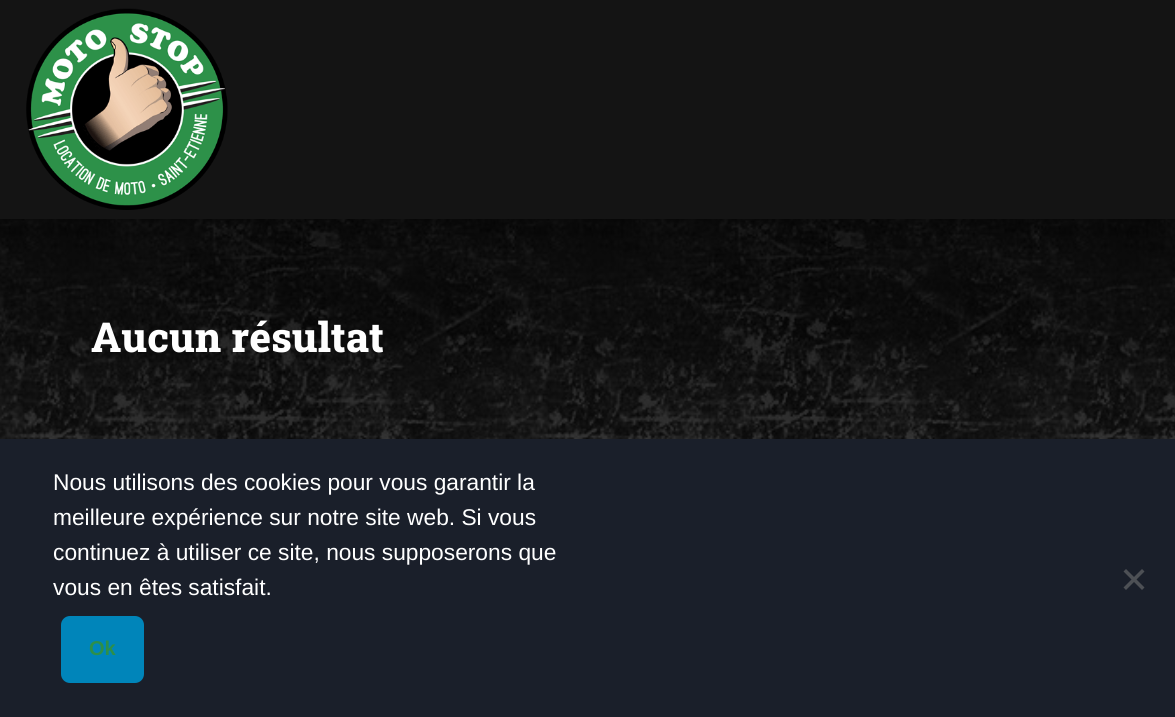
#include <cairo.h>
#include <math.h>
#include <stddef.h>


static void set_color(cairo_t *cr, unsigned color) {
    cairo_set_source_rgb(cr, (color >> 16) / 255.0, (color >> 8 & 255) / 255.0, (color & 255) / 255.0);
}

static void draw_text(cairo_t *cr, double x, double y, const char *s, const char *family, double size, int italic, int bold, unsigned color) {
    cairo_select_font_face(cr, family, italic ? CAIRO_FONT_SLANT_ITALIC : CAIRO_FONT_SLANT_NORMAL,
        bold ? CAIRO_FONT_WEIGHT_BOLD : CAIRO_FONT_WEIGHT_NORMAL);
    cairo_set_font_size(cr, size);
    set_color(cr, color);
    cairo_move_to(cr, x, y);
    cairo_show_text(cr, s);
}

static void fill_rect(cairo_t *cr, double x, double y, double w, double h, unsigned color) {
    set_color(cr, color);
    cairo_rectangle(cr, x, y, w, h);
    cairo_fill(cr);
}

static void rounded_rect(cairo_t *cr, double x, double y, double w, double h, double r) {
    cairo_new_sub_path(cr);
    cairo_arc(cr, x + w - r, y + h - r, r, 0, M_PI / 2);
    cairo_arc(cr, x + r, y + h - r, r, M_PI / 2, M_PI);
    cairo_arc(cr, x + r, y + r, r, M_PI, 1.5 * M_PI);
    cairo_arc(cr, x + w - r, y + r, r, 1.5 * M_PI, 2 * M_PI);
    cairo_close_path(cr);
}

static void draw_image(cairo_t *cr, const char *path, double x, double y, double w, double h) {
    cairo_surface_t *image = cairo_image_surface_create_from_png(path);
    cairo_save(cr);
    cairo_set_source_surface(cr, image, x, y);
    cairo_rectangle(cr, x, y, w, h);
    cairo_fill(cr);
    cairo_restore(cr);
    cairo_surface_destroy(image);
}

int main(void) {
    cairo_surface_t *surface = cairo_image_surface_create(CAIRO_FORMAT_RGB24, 1175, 717);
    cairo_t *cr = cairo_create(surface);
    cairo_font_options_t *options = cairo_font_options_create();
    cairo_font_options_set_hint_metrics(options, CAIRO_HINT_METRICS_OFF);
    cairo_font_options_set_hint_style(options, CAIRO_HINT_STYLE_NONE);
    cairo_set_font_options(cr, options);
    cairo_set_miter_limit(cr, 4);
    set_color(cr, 0xFFFFFF);
    cairo_paint(cr);
    draw_image(cr, "assets/img1.png", 0, 219, 1175, 220);
    fill_rect(cr, 0, 0, 1175, 219, 0x141414);
    draw_image(cr, "assets/img2.png", 26, 8, 202, 202);
    draw_text(cr, 91, 352, "Aucun résultat", "Roboto Slab ExtraBold", 41.25, 0, 0, 0xFFFFFF);
    fill_rect(cr, 0, 439, 1175, 278, 0x1A1F2A);
    draw_text(cr, 53, 490, "Nous utilisons des cookies pour vous garantir la", "Liberation Sans", 22.75, 0, 0, 0xFFFFFF);
    draw_text(cr, 53, 525, "meilleure expérience sur notre site web. Si vous", "Liberation Sans", 22.75, 0, 0, 0xFFFFFF);
    draw_text(cr, 53, 560, "continuez à utiliser ce site, nous supposerons que", "Liberation Sans", 22.75, 0, 0, 0xFFFFFF);
    draw_text(cr, 53, 595, "vous en êtes satisfait.", "Liberation Sans", 22.75, 0, 0, 0xFFFFFF);
    set_color(cr, 0x4D5055);
    cairo_new_path(cr);
    cairo_move_to(cr, 1142, 569);
    cairo_line_to(cr, 1144.5, 571.5);
    cairo_line_to(cr, 1126, 590);
    cairo_line_to(cr, 1123.5, 587.5);
    cairo_close_path(cr);
    cairo_fill(cr);
    cairo_new_path(cr);
    cairo_move_to(cr, 1123.5, 571.5);
    cairo_line_to(cr, 1126, 569);
    cairo_line_to(cr, 1144.5, 587.5);
    cairo_line_to(cr, 1142, 590);
    cairo_close_path(cr);
    cairo_fill(cr);
    set_color(cr, 0x0085BA);
    rounded_rect(cr, 61, 616, 83, 67, 9);
    cairo_fill(cr);
    draw_text(cr, 89, 655, "Ok", "Liberation Sans", 20, 0, 1, 0x2D8F49);
    cairo_surface_write_to_png(surface, "output.png");
    cairo_font_options_destroy(options);
    cairo_destroy(cr);
    cairo_surface_destroy(surface);
    return 0;
}
